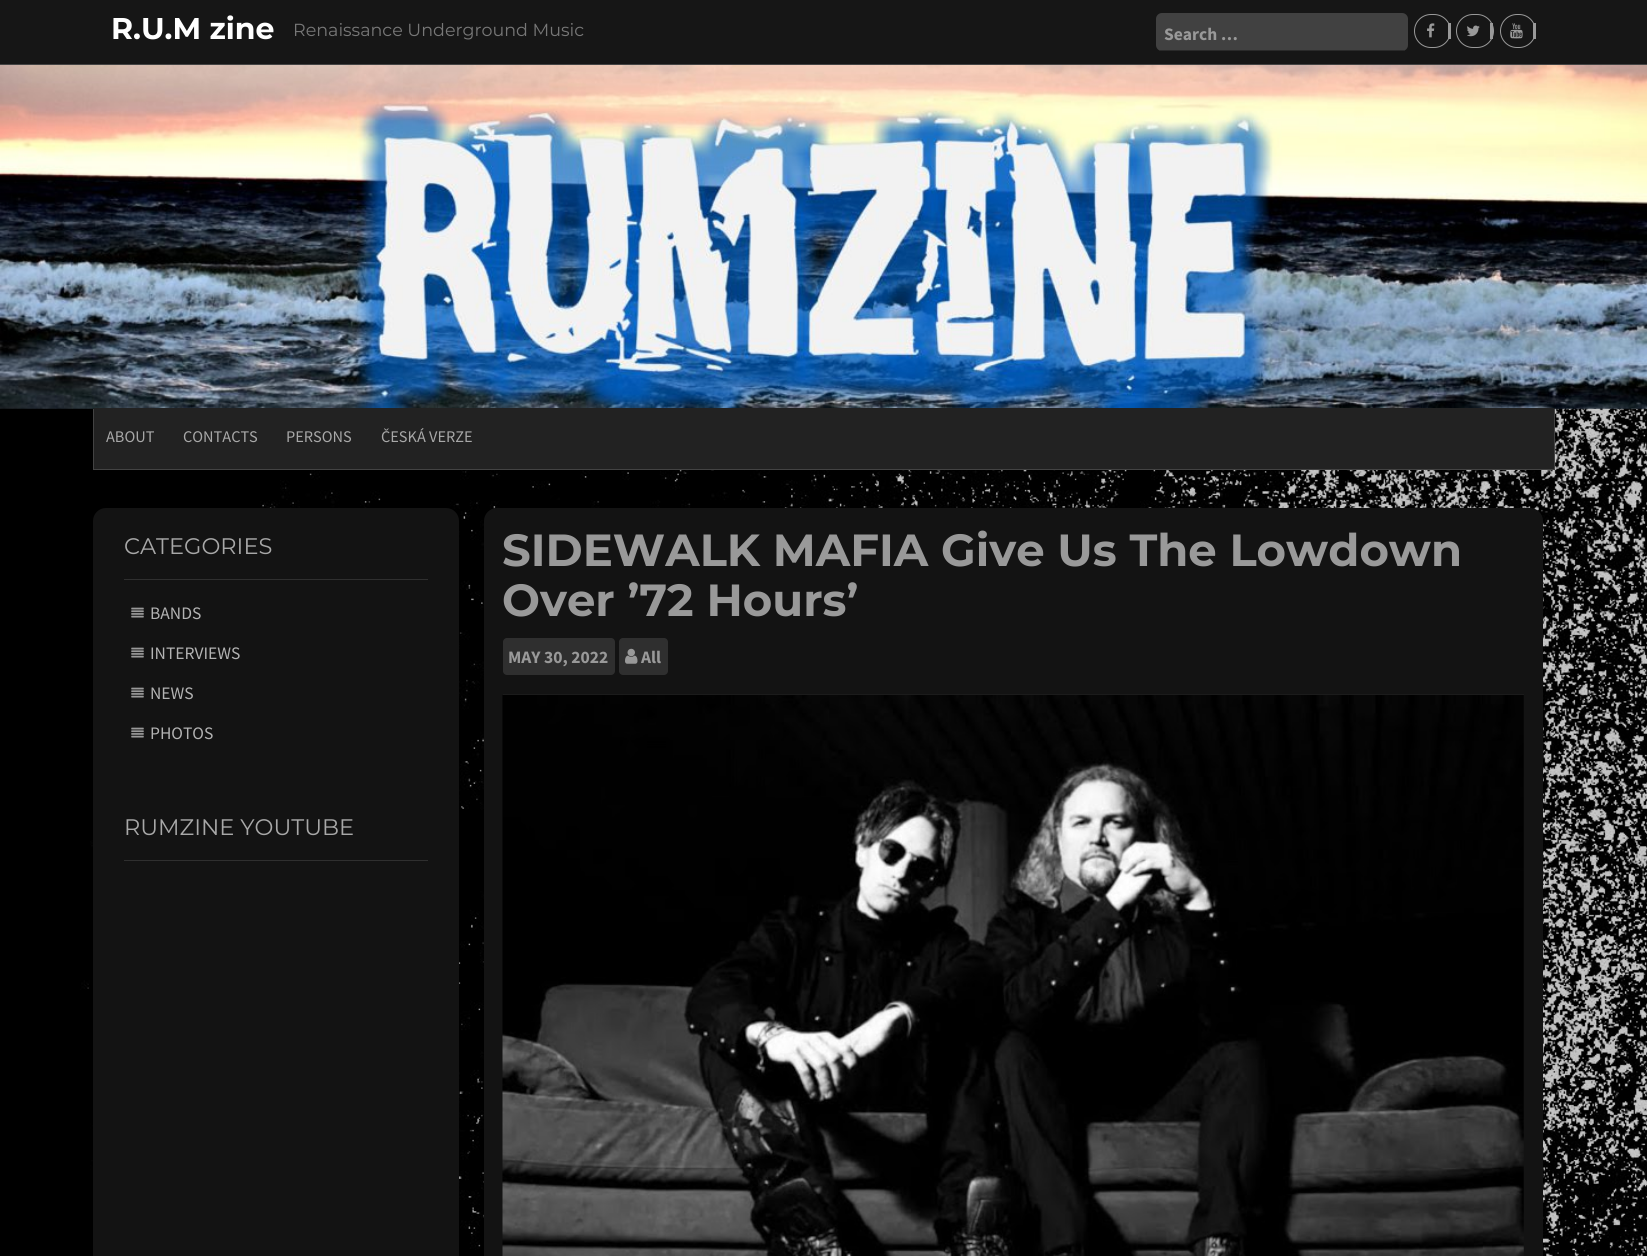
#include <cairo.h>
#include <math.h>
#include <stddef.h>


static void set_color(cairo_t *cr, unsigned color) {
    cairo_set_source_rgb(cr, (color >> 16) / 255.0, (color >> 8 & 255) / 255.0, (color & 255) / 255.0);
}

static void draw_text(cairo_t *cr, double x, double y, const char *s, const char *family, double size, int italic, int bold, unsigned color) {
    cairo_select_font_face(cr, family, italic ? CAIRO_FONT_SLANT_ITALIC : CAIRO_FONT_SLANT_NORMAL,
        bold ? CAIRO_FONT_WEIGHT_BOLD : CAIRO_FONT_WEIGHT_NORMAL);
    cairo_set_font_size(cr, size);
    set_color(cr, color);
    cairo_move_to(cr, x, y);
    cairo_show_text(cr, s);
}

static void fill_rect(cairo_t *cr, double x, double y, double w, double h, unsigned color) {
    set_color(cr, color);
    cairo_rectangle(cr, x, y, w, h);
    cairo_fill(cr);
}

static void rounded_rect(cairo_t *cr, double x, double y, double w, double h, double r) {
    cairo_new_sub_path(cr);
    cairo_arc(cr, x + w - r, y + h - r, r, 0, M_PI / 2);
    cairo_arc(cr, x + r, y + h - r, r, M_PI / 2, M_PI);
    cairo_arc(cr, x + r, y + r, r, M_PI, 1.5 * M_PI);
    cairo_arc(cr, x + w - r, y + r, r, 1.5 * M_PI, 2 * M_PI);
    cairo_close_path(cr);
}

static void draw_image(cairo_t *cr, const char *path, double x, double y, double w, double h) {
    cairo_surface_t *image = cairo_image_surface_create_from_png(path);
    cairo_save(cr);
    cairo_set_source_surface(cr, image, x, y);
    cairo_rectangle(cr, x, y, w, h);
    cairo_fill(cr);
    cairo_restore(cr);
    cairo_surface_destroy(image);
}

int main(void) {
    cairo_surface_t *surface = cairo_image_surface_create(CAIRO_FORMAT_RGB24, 1647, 1256);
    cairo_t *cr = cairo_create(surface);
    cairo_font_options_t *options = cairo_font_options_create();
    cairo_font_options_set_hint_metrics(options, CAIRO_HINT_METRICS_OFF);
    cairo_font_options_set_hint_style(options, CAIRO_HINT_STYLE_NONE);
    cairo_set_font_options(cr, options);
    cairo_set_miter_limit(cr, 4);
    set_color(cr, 0xFFFFFF);
    cairo_paint(cr);
    draw_image(cr, "assets/img1.png", 0, 408, 1647, 848);
    fill_rect(cr, 0, 0, 1647, 64, 0x161616);
    fill_rect(cr, 0, 64, 1647, 1, 0x434343);
    draw_text(cr, 111, 39, "R.U.M zine", "Montserrat", 30, 0, 1, 0xFFFFFF);
    draw_text(cr, 293, 36, "Renaissance Underground Music", "Montserrat", 17.5, 0, 0, 0x777777);
    set_color(cr, 0x414141);
    rounded_rect(cr, 1156, 13, 252, 38, 6);
    cairo_fill(cr);
    fill_rect(cr, 1160, 50, 245, 1, 0x2A2A2A);
    draw_text(cr, 1164, 40, "Search …", "Source Sans Pro", 17.5, 0, 1, 0x999999);
    rounded_rect(cr, 1414.5, 14.5, 36, 33, 16.5);
    cairo_set_line_width(cr, 1);
    cairo_stroke(cr);
    fill_rect(cr, 1448, 23, 3, 16, 0x999999);
    draw_image(cr, "assets/img2.png", 1427, 23, 8, 15);
    rounded_rect(cr, 1456.5, 14.5, 37, 33, 16.5);
    cairo_stroke(cr);
    fill_rect(cr, 1490, 23, 3, 16, 0x999999);
    draw_image(cr, "assets/img3.png", 1467, 25, 13, 12);
    rounded_rect(cr, 1500.5, 14.5, 35, 33, 16.5);
    cairo_stroke(cr);
    fill_rect(cr, 1533, 23, 3, 16, 0x999999);
    draw_image(cr, "assets/img4.png", 1510, 23, 13, 16);
    draw_image(cr, "assets/img5.png", 0, 65, 1647, 344);
    fill_rect(cr, 94, 409, 1460, 60, 0x222222);
    fill_rect(cr, 1554, 409, 1, 61, 0x434343);
    fill_rect(cr, 93, 469, 1462, 1, 0x434343);
    fill_rect(cr, 93, 409, 1, 61, 0x434343);
    fill_rect(cr, 94, 408, 1460, 1, 0x222222);
    draw_text(cr, 106, 442, "ABOUT", "Source Sans Pro", 16.25, 0, 0, 0xA8A8A8);
    draw_text(cr, 183, 442, "CONTACTS", "Source Sans Pro", 16.25, 0, 0, 0xA8A8A8);
    draw_text(cr, 286, 442, "PERSONS", "Source Sans Pro", 16.25, 0, 0, 0xA8A8A8);
    draw_text(cr, 381, 442, "ČESKÁ VERZE", "Source Sans Pro", 16.25, 0, 0, 0xA8A8A8);
    set_color(cr, 0x131313);
    rounded_rect(cr, 93, 508, 366, 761, 13);
    cairo_fill(cr);
    fill_rect(cr, 124, 579, 304, 1, 0x2F2F2F);
    draw_text(cr, 124, 554, "CATEGORIES", "Montserrat", 22.5, 0, 0, 0xA8A8A8);
    draw_image(cr, "assets/img6.png", 131, 607, 13, 11);
    draw_text(cr, 150, 619, "BANDS", "Source Sans Pro", 17.5, 0, 0, 0xB3B3B3);
    draw_image(cr, "assets/img6.png", 131, 647, 13, 11);
    draw_text(cr, 150, 659, "INTERVIEWS", "Source Sans Pro", 17.5, 0, 0, 0xB3B3B3);
    draw_image(cr, "assets/img6.png", 131, 687, 13, 11);
    draw_text(cr, 150, 699, "NEWS", "Source Sans Pro", 17.5, 0, 0, 0xB3B3B3);
    draw_image(cr, "assets/img6.png", 131, 727, 13, 11);
    draw_text(cr, 150, 739, "PHOTOS", "Source Sans Pro", 17.5, 0, 0, 0xB3B3B3);
    fill_rect(cr, 124, 860, 304, 1, 0x2F2F2F);
    draw_text(cr, 124, 835, "RUMZINE YOUTUBE", "Montserrat", 22.5, 0, 0, 0xA8A8A8);
    set_color(cr, 0x131313);
    rounded_rect(cr, 484, 508, 1059, 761, 13);
    cairo_fill(cr);
    draw_text(cr, 502, 566, "SIDEWALK MAFIA Give Us The Lowdown", "Montserrat", 45, 0, 1, 0x999999);
    draw_text(cr, 502, 616, "Over ’72 Hours’", "Montserrat", 45, 0, 1, 0x999999);
    fill_rect(cr, 503, 694, 1021, 1, 0x1B1B1B);
    set_color(cr, 0x2F2F2F);
    rounded_rect(cr, 503, 638, 112, 37, 4);
    cairo_fill(cr);
    draw_text(cr, 508, 663, "MAY 30, 2022", "Source Sans Pro", 17.5, 0, 1, 0x999999);
    set_color(cr, 0x2F2F2F);
    rounded_rect(cr, 619, 638, 49, 37, 4);
    cairo_fill(cr);
    draw_image(cr, "assets/img7.png", 625, 648, 13, 16);
    draw_text(cr, 641, 663, "All", "Source Sans Pro", 17.5, 0, 1, 0x999999);
    draw_image(cr, "assets/img8.png", 502, 695, 1022, 561);
    cairo_surface_write_to_png(surface, "output.png");
    cairo_font_options_destroy(options);
    cairo_destroy(cr);
    cairo_surface_destroy(surface);
    return 0;
}
